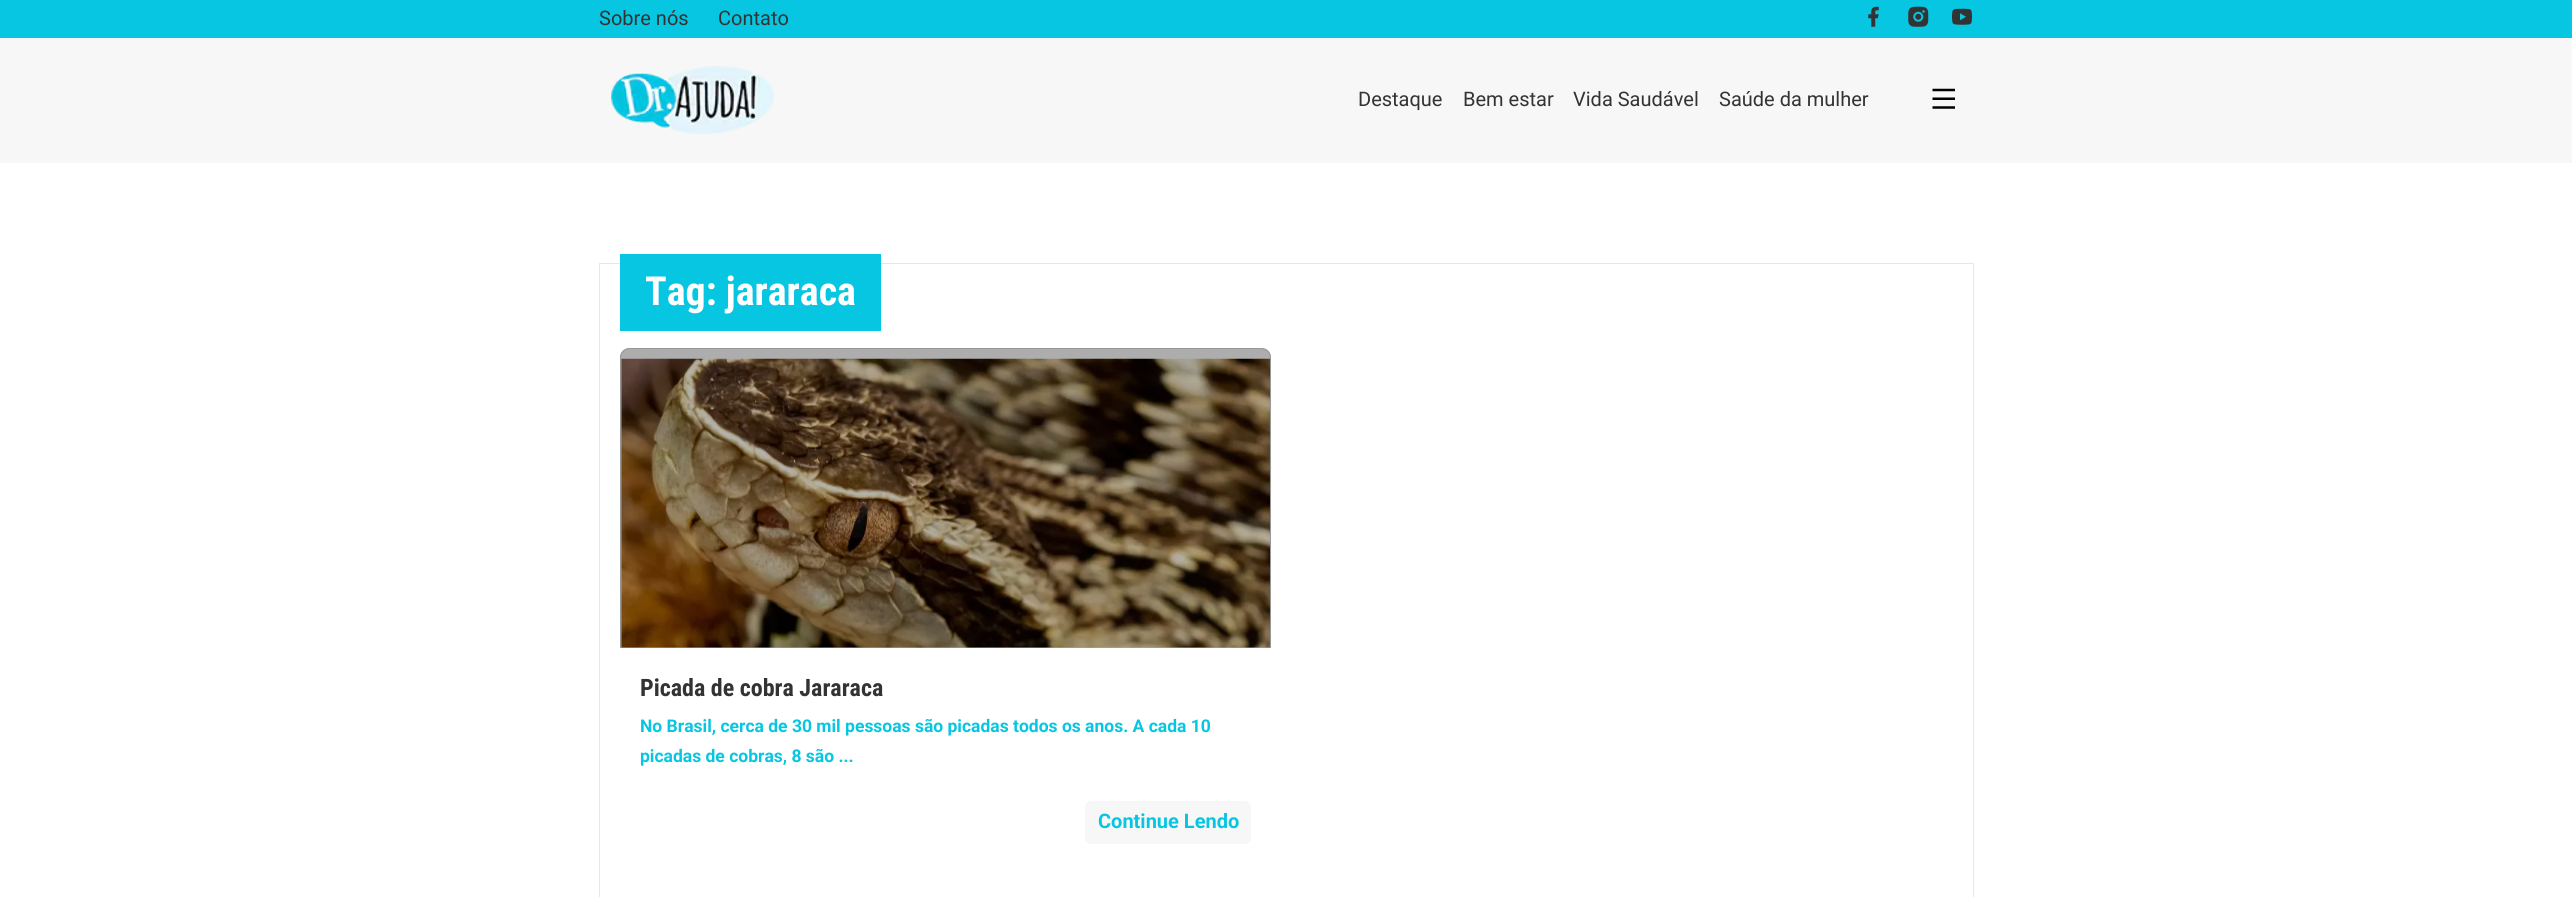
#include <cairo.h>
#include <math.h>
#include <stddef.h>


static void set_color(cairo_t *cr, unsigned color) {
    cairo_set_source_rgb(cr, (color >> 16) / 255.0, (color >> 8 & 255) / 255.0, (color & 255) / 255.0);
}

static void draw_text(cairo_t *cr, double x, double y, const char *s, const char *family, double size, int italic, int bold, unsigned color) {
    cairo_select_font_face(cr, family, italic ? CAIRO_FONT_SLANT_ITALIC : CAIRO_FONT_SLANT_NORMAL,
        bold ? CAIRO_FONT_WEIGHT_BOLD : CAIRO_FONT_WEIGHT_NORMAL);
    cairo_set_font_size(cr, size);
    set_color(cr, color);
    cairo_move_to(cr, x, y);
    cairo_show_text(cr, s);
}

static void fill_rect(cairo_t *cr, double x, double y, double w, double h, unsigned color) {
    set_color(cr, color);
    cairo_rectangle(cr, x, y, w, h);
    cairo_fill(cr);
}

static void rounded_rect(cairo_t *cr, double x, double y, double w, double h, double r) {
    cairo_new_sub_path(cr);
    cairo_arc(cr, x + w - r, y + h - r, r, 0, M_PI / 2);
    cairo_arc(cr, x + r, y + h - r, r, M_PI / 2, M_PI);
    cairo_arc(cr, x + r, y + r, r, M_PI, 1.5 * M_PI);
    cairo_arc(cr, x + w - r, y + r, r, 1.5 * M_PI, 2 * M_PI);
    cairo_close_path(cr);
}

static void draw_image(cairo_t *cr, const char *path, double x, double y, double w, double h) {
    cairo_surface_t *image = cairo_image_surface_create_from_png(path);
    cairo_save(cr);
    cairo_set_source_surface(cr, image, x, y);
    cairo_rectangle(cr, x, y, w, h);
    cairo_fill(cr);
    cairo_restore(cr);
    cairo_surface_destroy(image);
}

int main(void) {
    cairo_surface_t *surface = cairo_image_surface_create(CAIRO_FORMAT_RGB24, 2572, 897);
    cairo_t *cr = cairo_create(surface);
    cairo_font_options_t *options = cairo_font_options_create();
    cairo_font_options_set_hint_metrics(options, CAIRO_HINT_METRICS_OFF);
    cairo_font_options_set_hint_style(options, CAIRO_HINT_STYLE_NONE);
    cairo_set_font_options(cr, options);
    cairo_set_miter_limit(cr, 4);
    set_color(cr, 0xFFFFFF);
    cairo_paint(cr);
    fill_rect(cr, 0, 38, 2572, 125, 0xF7F7F7);
    fill_rect(cr, 0, 0, 2572, 38, 0x06C6E2);
    draw_text(cr, 599, 25, "Sobre nós", "Roboto", 20, 0, 0, 0x333333);
    draw_text(cr, 718, 25, "Contato", "Roboto", 20, 0, 0, 0x333333);
    draw_image(cr, "assets/img1.png", 1868, 6, 11, 21);
    draw_image(cr, "assets/img2.png", 1908, 6, 21, 21);
    draw_image(cr, "assets/img3.png", 1952, 8, 20, 17);
    draw_image(cr, "assets/img4.png", 611, 66, 163, 68);
    draw_text(cr, 1358, 106, "Destaque", "Roboto", 20, 0, 0, 0x333333);
    draw_text(cr, 1463, 106, "Bem estar", "Roboto", 20, 0, 0, 0x333333);
    draw_text(cr, 1573, 106, "Vida Saudável", "Roboto", 20, 0, 0, 0x333333);
    draw_text(cr, 1719, 106, "Saúde da mulher", "Roboto", 20, 0, 0, 0x333333);
    draw_image(cr, "assets/img5.png", 1932, 88, 23, 21);
    cairo_rectangle(cr, 599.5, 263.5, 1374, 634);
    set_color(cr, 0xE5E7EB);
    cairo_set_line_width(cr, 1);
    cairo_stroke(cr);
    fill_rect(cr, 620, 254, 261, 77, 0x06C6E2);
    draw_text(cr, 645, 305, "Tag: jararaca", "Roboto Condensed", 40, 0, 1, 0xFFFFFF);
    set_color(cr, 0xADADAD);
    cairo_new_path(cr);
    cairo_move_to(cr, 630, 348);
    cairo_line_to(cr, 1261, 348);
    cairo_curve_to(cr, 1266.5, 348, 1271, 352.5, 1271, 358);
    cairo_line_to(cr, 1271, 648);
    cairo_line_to(cr, 620, 648);
    cairo_line_to(cr, 620, 358);
    cairo_curve_to(cr, 620, 352.5, 624.5, 348, 630, 348);
    cairo_close_path(cr);
    cairo_fill(cr);
    set_color(cr, 0x979797);
    cairo_set_fill_rule(cr, CAIRO_FILL_RULE_EVEN_ODD);
    cairo_new_path(cr);
    cairo_move_to(cr, 630, 348);
    cairo_line_to(cr, 1261, 348);
    cairo_curve_to(cr, 1267, 348, 1271, 352, 1271, 358);
    cairo_line_to(cr, 1271, 648);
    cairo_line_to(cr, 620, 648);
    cairo_line_to(cr, 620, 358);
    cairo_curve_to(cr, 620, 352, 624, 348, 630, 348);
    cairo_close_path(cr);
    cairo_move_to(cr, 630, 349);
    cairo_line_to(cr, 1261, 349);
    cairo_curve_to(cr, 1266, 349, 1270, 353, 1270, 358);
    cairo_line_to(cr, 1270, 648);
    cairo_line_to(cr, 621, 648);
    cairo_line_to(cr, 621, 358);
    cairo_curve_to(cr, 621, 353, 625, 349, 630, 349);
    cairo_close_path(cr);
    cairo_fill(cr);
    draw_image(cr, "assets/img6.png", 621, 358, 649, 290);
    draw_text(cr, 640, 696, "Picada de cobra Jararaca", "Roboto Condensed", 24, 0, 1, 0x333333);
    draw_text(cr, 640, 732, "No Brasil, cerca de 30 mil pessoas são picadas todos os anos. A cada 10", "Roboto", 17.5, 0, 1, 0x06C6E2);
    draw_text(cr, 640, 762, "picadas de cobras, 8 são ...", "Roboto", 17.5, 0, 1, 0x06C6E2);
    set_color(cr, 0xF7F7F7);
    rounded_rect(cr, 1085, 801, 166, 43, 6);
    cairo_fill(cr);
    draw_text(cr, 1098, 828, "Continue Lendo", "Roboto", 20, 0, 1, 0x06C6E2);
    cairo_surface_write_to_png(surface, "output.png");
    cairo_font_options_destroy(options);
    cairo_destroy(cr);
    cairo_surface_destroy(surface);
    return 0;
}
